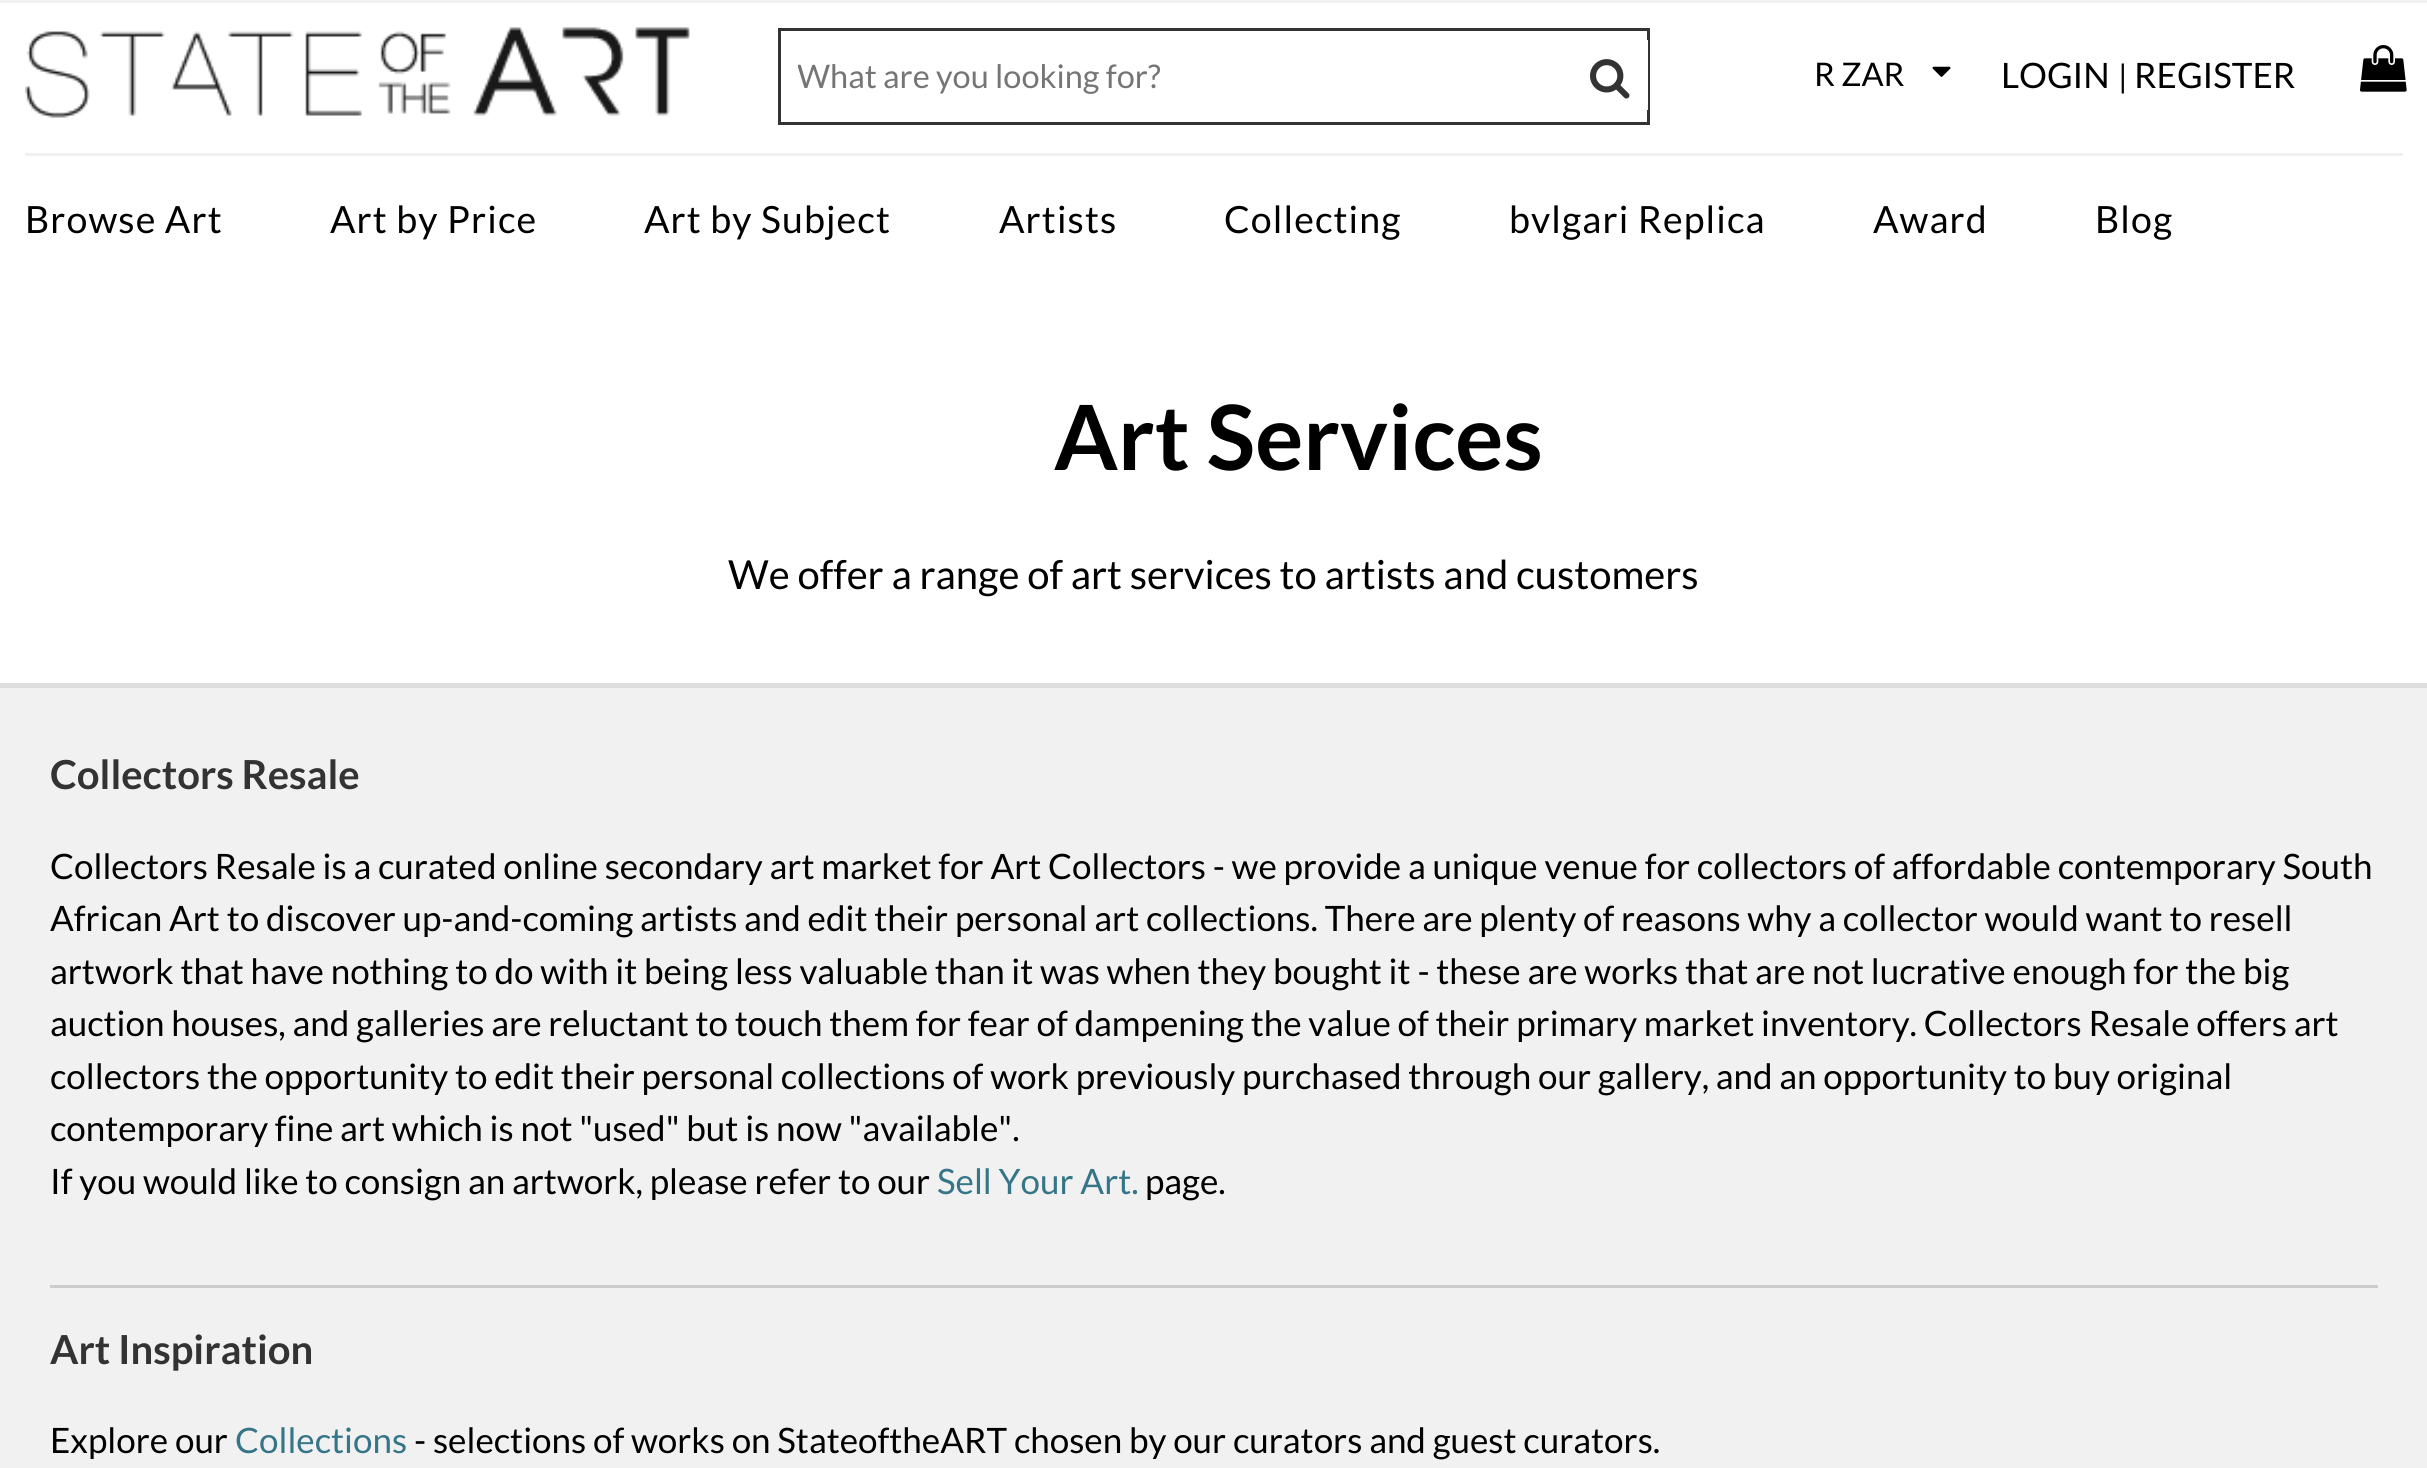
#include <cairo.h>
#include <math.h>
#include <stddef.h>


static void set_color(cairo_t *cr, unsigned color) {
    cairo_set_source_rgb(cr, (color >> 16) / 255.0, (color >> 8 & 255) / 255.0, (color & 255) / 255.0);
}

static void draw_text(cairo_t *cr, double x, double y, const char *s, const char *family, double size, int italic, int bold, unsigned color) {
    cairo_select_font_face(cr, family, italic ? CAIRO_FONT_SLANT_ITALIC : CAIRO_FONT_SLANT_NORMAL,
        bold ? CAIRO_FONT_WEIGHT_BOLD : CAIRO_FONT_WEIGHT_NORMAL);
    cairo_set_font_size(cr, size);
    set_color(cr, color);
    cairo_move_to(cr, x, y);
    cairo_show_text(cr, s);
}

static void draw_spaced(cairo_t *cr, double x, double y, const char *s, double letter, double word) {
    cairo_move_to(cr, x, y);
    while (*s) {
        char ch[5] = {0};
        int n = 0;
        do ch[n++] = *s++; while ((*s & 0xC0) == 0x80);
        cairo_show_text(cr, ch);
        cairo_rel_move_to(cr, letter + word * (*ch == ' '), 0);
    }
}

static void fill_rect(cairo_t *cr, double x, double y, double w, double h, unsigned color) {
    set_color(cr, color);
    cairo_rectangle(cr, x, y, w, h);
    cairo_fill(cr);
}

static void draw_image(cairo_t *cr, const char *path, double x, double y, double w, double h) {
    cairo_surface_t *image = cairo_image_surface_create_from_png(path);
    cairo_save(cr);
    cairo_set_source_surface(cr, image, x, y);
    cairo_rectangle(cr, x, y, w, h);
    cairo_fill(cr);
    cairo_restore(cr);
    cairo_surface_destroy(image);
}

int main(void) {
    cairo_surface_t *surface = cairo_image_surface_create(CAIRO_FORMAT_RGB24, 2427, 1468);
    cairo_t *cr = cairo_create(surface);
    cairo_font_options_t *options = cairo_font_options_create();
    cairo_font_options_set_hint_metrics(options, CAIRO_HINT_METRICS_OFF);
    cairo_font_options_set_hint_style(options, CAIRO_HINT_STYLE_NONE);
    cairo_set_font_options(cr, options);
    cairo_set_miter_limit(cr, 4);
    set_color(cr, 0xF1F1F1);
    cairo_paint(cr);
    fill_rect(cr, 0, 3, 2427, 680, 0xFFFFFF);
    cairo_rectangle(cr, 779.5, 29.5, 869, 94);
    set_color(cr, 0x333333);
    cairo_set_line_width(cr, 3);
    cairo_stroke(cr);
    cairo_save(cr);
    cairo_rectangle(cr, 798, 55, 842, 40);
    cairo_clip(cr);
    draw_text(cr, 797, 88, "What are you looking for?", "Lato", 32.5, 0, 0, 0x757575);
    cairo_restore(cr);
    fill_rect(cr, 1647, 40, 1, 70, 0xFFFFFF);
    draw_image(cr, "assets/img1.png", 1590, 59, 40, 40);
    draw_image(cr, "assets/img2.png", 25, 27, 665, 91);
    draw_text(cr, 1814, 86, "R ZAR", "Lato", 32.5, 0, 0, 0x000000);
    draw_image(cr, "assets/img3.png", 1932, 66, 19, 11);
    draw_text(cr, 2001, 88, "LOGIN", "Lato", 35, 0, 0, 0x000000);
    draw_text(cr, 2118, 88, "|", "Lato", 32, 0, 0, 0x000000);
    draw_text(cr, 2134, 88, "REGISTER", "Lato", 35, 0, 0, 0x000000);
    draw_image(cr, "assets/img4.png", 2360, 45, 47, 47);
    fill_rect(cr, 25, 153, 2378, 3, 0xF1F1F1);
    cairo_set_font_size(cr, 37.5);
    set_color(cr, 0x000000);
    draw_spaced(cr, 25, 233, "Browse Art", 1.1, 0);
    draw_spaced(cr, 330, 233, "Art by Price", 1.1, 0);
    draw_spaced(cr, 644, 233, "Art by Subject", 1.1, 0);
    draw_spaced(cr, 999, 233, "Artists", 1.1, 0);
    draw_spaced(cr, 1224, 233, "Collecting", 1.1, 0);
    draw_spaced(cr, 1509, 233, "bvlgari Replica", 1.1, 0);
    draw_spaced(cr, 1873, 233, "Award", 1.1, 0);
    draw_spaced(cr, 2095, 233, "Blog", 1.1, 0);
    fill_rect(cr, 0, 683, 2427, 5, 0xDDDDDD);
    draw_text(cr, 1054, 470, "Art Services", "Lato", 90, 0, 1, 0x000000);
    draw_text(cr, 728, 589, "We offer a range of art services to artists and customers", "Lato", 40, 0, 0, 0x000000);
    draw_text(cr, 50, 789, "Collectors Resale", "Lato", 40, 0, 1, 0x333333);
    draw_text(cr, 50, 879, "Collectors Resale is a curated online secondary art market for Art Collectors - we provide a unique venue for collectors of affordable contemporary South", "Lato", 35, 0, 0, 0x000000);
    draw_text(cr, 50, 931, "African Art to discover up-and-coming artists and edit their personal art collections. There are plenty of reasons why a collector would want to resell", "Lato", 35, 0, 0, 0x000000);
    draw_text(cr, 50, 984, "artwork that have nothing to do with it being less valuable than it was when they bought it - these are works that are not lucrative enough for the big", "Lato", 35, 0, 0, 0x000000);
    draw_text(cr, 50, 1036, "auction houses, and galleries are reluctant to touch them for fear of dampening the value of their primary market inventory. Collectors Resale offers art", "Lato", 35, 0, 0, 0x000000);
    draw_text(cr, 50, 1089, "collectors the opportunity to edit their personal collections of work previously purchased through our gallery, and an opportunity to buy original", "Lato", 35, 0, 0, 0x000000);
    draw_text(cr, 50, 1141, "contemporary fine art which is not \"used\" but is now \"available\".", "Lato", 35, 0, 0, 0x000000);
    draw_text(cr, 50, 1194, "If you would like to consign an artwork, please refer to our", "Lato", 35, 0, 0, 0x000000);
    draw_text(cr, 937, 1194, "Sell Your Art.", "Lato", 35, 0, 0, 0x367588);
    draw_text(cr, 1145, 1194, "page.", "Lato", 35, 0, 0, 0x000000);
    fill_rect(cr, 50, 1285, 2328, 3, 0xCCCCCC);
    draw_text(cr, 50, 1364, "Art Inspiration", "Lato", 40, 0, 1, 0x333333);
    draw_text(cr, 50, 1453, "Explore our", "Lato", 35, 0, 0, 0x000000);
    draw_text(cr, 235, 1453, "Collections", "Lato", 35, 0, 0, 0x367588);
    draw_text(cr, 414, 1453, "- selections of works on StateoftheART chosen by our curators and guest curators.", "Lato", 35, 0, 0, 0x000000);
    cairo_surface_write_to_png(surface, "output.png");
    cairo_font_options_destroy(options);
    cairo_destroy(cr);
    cairo_surface_destroy(surface);
    return 0;
}
